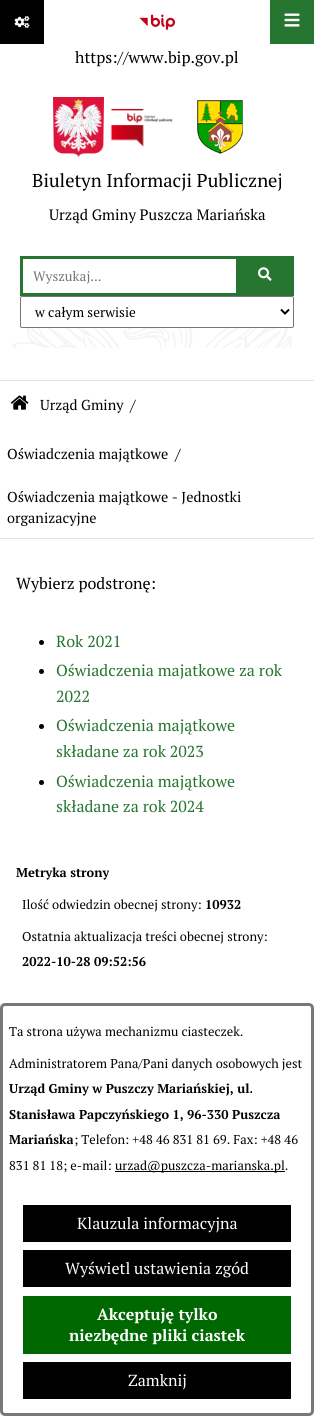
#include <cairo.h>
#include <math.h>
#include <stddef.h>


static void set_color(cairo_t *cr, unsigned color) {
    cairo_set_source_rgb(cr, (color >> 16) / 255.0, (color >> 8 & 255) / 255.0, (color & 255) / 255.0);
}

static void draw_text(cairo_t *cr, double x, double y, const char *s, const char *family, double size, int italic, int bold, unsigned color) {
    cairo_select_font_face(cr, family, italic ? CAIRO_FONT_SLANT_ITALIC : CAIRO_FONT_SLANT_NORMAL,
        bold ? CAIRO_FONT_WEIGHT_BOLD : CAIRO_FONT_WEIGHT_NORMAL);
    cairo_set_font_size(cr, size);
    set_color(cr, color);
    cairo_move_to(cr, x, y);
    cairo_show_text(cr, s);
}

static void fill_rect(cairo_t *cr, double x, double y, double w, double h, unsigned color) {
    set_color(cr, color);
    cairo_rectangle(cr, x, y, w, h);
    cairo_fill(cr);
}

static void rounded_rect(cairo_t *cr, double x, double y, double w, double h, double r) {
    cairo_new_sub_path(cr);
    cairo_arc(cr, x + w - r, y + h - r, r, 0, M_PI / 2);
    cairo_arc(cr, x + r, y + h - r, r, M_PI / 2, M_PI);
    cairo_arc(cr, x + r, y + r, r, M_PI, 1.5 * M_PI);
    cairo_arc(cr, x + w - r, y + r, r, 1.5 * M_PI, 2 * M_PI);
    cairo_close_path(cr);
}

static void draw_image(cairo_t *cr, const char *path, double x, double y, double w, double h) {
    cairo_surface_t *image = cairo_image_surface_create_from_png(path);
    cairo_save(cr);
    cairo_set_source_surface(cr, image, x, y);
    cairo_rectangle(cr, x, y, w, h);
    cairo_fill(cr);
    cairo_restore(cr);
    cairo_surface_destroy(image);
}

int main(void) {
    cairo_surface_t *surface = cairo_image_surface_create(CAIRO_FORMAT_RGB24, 314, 1416);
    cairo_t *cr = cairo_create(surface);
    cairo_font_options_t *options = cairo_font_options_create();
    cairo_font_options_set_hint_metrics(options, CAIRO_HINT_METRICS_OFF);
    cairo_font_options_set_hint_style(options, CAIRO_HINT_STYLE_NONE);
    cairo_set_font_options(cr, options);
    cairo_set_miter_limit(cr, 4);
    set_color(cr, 0xFFFFFF);
    cairo_paint(cr);
    fill_rect(cr, 0, 380, 314, 1, 0xE1E1E1);
    fill_rect(cr, 0, 0, 44, 44, 0x000000);
    draw_image(cr, "assets/img1.png", 14, 16, 16, 12);
    fill_rect(cr, 270, 0, 44, 44, 0x267530);
    draw_image(cr, "assets/img2.png", 284, 13, 16, 14);
    draw_image(cr, "assets/img3.png", 12, 328, 280, 20);
    draw_image(cr, "assets/img4.png", 139, 14, 36, 16);
    draw_text(cr, 75, 63, "https://www.bip.gov.pl", "PT Serif", 16, 0, 0, 0x000000);
    draw_image(cr, "assets/img5.png", 53, 97, 51, 60);
    draw_image(cr, "assets/img6.png", 110, 108, 63, 39);
    draw_image(cr, "assets/img7.png", 197, 100, 46, 54);
    draw_text(cr, 32, 187, "Biuletyn Informacji Publicznej", "PT Serif", 18.5, 0, 0, 0x000000);
    draw_text(cr, 49, 220, "Urząd Gminy Puszcza Mariańska", "PT Serif", 15, 0, 0, 0x000000);
    cairo_rectangle(cr, 21.5, 257.5, 216, 37);
    set_color(cr, 0x267530);
    cairo_set_line_width(cr, 3);
    cairo_stroke(cr);
    draw_text(cr, 33, 281, "Wyszukaj...", "PT Serif", 13.5, 0, 0, 0x757575);
    fill_rect(cr, 239, 256, 55, 40, 0x267530);
    draw_image(cr, "assets/img8.png", 258, 267, 14, 14);
    rounded_rect(cr, 20.5, 296.5, 273, 31, 1.5);
    set_color(cr, 0x767676);
    cairo_set_line_width(cr, 1);
    cairo_stroke(cr);
    cairo_new_path(cr);
    cairo_move_to(cr, 281, 309.5);
    cairo_line_to(cr, 285, 313.5);
    cairo_line_to(cr, 289, 309.5);
    set_color(cr, 0x000000);
    cairo_set_line_width(cr, 2);
    cairo_stroke(cr);
    draw_text(cr, 35, 317, "w całym serwisie", "PT Serif", 13.5, 0, 0, 0x000000);
    fill_rect(cr, 0, 538, 314, 1, 0xE1E1E1);
    draw_image(cr, "assets/img9.png", 10, 395, 19, 15);
    draw_text(cr, 40, 410, "Urząd Gminy", "PT Serif", 14.4, 0, 0, 0x000000);
    draw_text(cr, 130, 411, "/", "PT Serif", 16, 0, 0, 0x000000);
    draw_text(cr, 7, 459, "Oświadczenia majątkowe", "PT Serif", 14.4, 0, 0, 0x000000);
    draw_text(cr, 175, 460, "/", "PT Serif", 16, 0, 0, 0x000000);
    draw_text(cr, 7, 502, "Oświadczenia majątkowe - Jednostki", "PT Serif", 14.4, 0, 0, 0x000000);
    draw_text(cr, 7, 523, "organizacyjne", "PT Serif", 14.4, 0, 0, 0x000000);
    draw_text(cr, 16, 589, "Wybierz podstronę:", "PT Serif", 16, 0, 0, 0x000000);
    cairo_new_path(cr);
    cairo_arc(cr, 41.5, 642.5, 2.5, 0, 2 * M_PI);
    cairo_fill(cr);
    draw_text(cr, 56, 647, "Rok 2021", "PT Serif", 16, 0, 0, 0x267530);
    set_color(cr, 0x000000);
    cairo_new_path(cr);
    cairo_arc(cr, 41.5, 671.5, 2.5, 0, 2 * M_PI);
    cairo_fill(cr);
    draw_text(cr, 56, 676, "Oświadczenia majatkowe za rok", "PT Serif", 16, 0, 0, 0x267530);
    draw_text(cr, 56, 702, "2022", "PT Serif", 16, 0, 0, 0x267530);
    set_color(cr, 0x000000);
    cairo_new_path(cr);
    cairo_arc(cr, 41.5, 726.5, 2.5, 0, 2 * M_PI);
    cairo_fill(cr);
    draw_text(cr, 56, 731, "Oświadczenia majątkowe", "PT Serif", 16, 0, 0, 0x267530);
    draw_text(cr, 56, 757, "składane za rok 2023", "PT Serif", 16, 0, 0, 0x267530);
    set_color(cr, 0x000000);
    cairo_new_path(cr);
    cairo_arc(cr, 41.5, 782.5, 2.5, 0, 2 * M_PI);
    cairo_fill(cr);
    draw_text(cr, 56, 787, "Oświadczenia majątkowe", "PT Serif", 16, 0, 0, 0x267530);
    draw_text(cr, 56, 812, "składane za rok 2024", "PT Serif", 16, 0, 0, 0x267530);
    draw_text(cr, 16, 877, "Metryka strony", "PT Serif", 12.8, 0, 1, 0x000000);
    draw_text(cr, 22, 909, "Ilość odwiedzin obecnej strony:", "PT Serif", 12.8, 0, 0, 0x000000);
    draw_text(cr, 205, 909, "10932", "PT Serif", 12.8, 0, 1, 0x000000);
    draw_text(cr, 22, 941, "Ostatnia aktualizacja treści obecnej strony:", "PT Serif", 12.8, 0, 0, 0x000000);
    draw_text(cr, 22, 966, "2022-10-28 09:52:56", "PT Serif", 12.8, 0, 1, 0x000000);
    rounded_rect(cr, 1.5, 1004.5, 311, 410, 3.5);
    set_color(cr, 0x787878);
    cairo_set_line_width(cr, 3);
    cairo_stroke(cr);
    draw_text(cr, 9, 1036, "Ta strona używa mechanizmu ciasteczek.", "PT Serif", 12.8, 0, 0, 0x000000);
    draw_text(cr, 9, 1068, "Administratorem Pana/Pani danych osobowych jest", "PT Serif", 12.8, 0, 0, 0x000000);
    draw_text(cr, 9, 1093, "Urząd Gminy w Puszczy Mariańskiej, ul.", "PT Serif", 12.8, 0, 1, 0x000000);
    draw_text(cr, 9, 1119, "Stanisława Papczyńskiego 1, 96-330 Puszcza", "PT Serif", 12.8, 0, 1, 0x000000);
    draw_text(cr, 9, 1144, "Mariańska", "PT Serif", 12.8, 0, 1, 0x000000);
    draw_text(cr, 74, 1144, "; Telefon: +48 46 831 81 69. Fax: +48 46", "PT Serif", 12.8, 0, 0, 0x000000);
    draw_text(cr, 9, 1170, "831 81 18; e-mail:", "PT Serif", 12.8, 0, 0, 0x000000);
    fill_rect(cr, 115, 1171, 170, 1, 0x000000);
    draw_text(cr, 115, 1170, "urzad@puszcza-marianska.pl.", "PT Serif", 12.8, 0, 0, 0x000000);
    fill_rect(cr, 23, 1205, 268, 37, 0x000000);
    draw_text(cr, 77, 1229, "Klauzula informacyjna", "PT Serif", 16, 0, 0, 0xFFFFFF);
    fill_rect(cr, 23, 1250, 268, 37, 0x000000);
    draw_text(cr, 65, 1274, "Wyświetl ustawienia zgód", "PT Serif", 16, 0, 0, 0xFFFFFF);
    fill_rect(cr, 23, 1296, 268, 58, 0x006800);
    draw_text(cr, 97, 1320, "Akceptuję tylko", "PT Serif", 16, 0, 1, 0xFFFFFF);
    draw_text(cr, 69, 1341, "niezbędne pliki ciastek", "PT Serif", 16, 0, 1, 0xFFFFFF);
    fill_rect(cr, 23, 1362, 268, 37, 0x000000);
    draw_text(cr, 128, 1386, "Zamknij", "PT Serif", 16, 0, 0, 0xFFFFFF);
    cairo_surface_write_to_png(surface, "output.png");
    cairo_font_options_destroy(options);
    cairo_destroy(cr);
    cairo_surface_destroy(surface);
    return 0;
}
